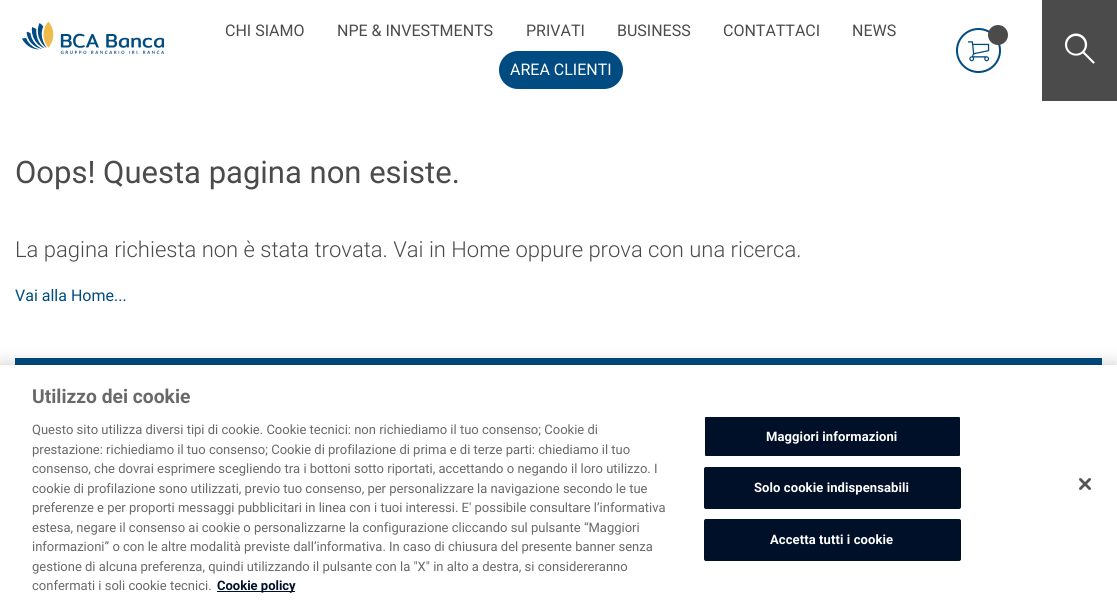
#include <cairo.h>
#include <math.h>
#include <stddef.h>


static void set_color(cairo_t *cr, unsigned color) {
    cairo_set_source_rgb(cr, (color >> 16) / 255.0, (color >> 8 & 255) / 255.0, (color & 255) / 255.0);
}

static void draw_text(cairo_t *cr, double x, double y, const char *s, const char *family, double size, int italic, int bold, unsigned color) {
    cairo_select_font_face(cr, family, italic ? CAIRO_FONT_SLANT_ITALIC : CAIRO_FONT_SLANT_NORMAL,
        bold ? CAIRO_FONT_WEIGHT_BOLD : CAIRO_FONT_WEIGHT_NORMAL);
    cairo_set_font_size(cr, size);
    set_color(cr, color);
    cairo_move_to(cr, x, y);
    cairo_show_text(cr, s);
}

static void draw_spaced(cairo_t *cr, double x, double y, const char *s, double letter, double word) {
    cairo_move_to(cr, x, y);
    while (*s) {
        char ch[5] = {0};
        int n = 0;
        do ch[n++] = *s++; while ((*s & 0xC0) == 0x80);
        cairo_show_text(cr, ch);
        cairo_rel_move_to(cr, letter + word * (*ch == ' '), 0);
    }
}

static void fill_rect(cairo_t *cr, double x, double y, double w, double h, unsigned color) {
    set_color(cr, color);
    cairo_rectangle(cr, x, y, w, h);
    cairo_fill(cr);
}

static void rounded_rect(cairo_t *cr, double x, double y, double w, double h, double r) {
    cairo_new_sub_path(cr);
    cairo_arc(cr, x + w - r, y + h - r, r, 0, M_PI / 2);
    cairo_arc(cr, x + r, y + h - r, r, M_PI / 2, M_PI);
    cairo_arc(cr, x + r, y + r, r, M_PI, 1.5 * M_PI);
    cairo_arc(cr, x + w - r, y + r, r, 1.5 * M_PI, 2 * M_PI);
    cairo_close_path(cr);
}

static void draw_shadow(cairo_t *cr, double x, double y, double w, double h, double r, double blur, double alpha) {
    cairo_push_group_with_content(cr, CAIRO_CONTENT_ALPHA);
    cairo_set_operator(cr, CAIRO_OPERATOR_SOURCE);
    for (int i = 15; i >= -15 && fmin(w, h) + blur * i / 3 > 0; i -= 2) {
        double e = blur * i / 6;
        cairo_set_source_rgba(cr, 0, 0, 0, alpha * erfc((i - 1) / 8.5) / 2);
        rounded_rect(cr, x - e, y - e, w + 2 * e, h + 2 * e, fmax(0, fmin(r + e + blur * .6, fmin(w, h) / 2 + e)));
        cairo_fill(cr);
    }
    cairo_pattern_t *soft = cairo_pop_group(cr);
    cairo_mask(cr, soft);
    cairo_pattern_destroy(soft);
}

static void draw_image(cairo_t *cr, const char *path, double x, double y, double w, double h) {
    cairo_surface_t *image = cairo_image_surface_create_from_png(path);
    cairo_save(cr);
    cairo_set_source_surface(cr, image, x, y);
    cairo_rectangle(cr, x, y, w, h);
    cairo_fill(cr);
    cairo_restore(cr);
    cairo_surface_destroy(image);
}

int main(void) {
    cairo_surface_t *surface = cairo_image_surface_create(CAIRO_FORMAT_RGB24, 1117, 606);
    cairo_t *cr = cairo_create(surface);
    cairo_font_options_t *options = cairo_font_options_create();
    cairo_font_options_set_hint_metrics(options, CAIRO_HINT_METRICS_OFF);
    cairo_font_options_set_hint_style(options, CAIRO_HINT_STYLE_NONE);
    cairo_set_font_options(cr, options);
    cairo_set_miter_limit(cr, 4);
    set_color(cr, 0xFFFFFF);
    cairo_paint(cr);
    draw_image(cr, "assets/img1.png", 22, 21, 142, 33);
    draw_text(cr, 225, 36, "CHI SIAMO", "Roboto", 16, 0, 0, 0x4B4B4B);
    draw_text(cr, 337, 36, "NPE & INVESTMENTS", "Roboto", 16, 0, 0, 0x4B4B4B);
    draw_text(cr, 526, 36, "PRIVATI", "Roboto", 16, 0, 0, 0x4B4B4B);
    draw_text(cr, 617, 36, "BUSINESS", "Roboto", 16, 0, 0, 0x4B4B4B);
    draw_text(cr, 723, 36, "CONTATTACI", "Roboto", 16, 0, 0, 0x4B4B4B);
    draw_text(cr, 852, 36, "NEWS", "Roboto", 16, 0, 0, 0x4B4B4B);
    set_color(cr, 0x004B81);
    rounded_rect(cr, 499, 51, 124, 38, 19);
    cairo_fill(cr);
    draw_text(cr, 510, 75, "AREA CLIENTI", "Roboto", 16, 0, 0, 0xFFFFFF);
    cairo_new_path(cr);
    cairo_arc(cr, 978.5, 50.5, 21.5, 0, 2 * M_PI);
    set_color(cr, 0x004B81);
    cairo_stroke(cr);
    draw_image(cr, "assets/img2.png", 968, 41, 22, 21);
    set_color(cr, 0x4B4B4B);
    cairo_arc(cr, 998, 35, 10, 0, 2 * M_PI);
    cairo_fill(cr);
    fill_rect(cr, 1042, 0, 75, 101, 0x4B4B4B);
    draw_image(cr, "assets/img3.png", 1064, 33, 31, 31);
    draw_text(cr, 15, 183, "Oops! Questa pagina non esiste.", "Roboto", 31, 0, 0, 0x4B4B4B);
    draw_text(cr, 15, 257, "La pagina richiesta non è stata trovata. Vai in Home oppure prova con una ricerca.", "Roboto Light", 22, 0, 0, 0x4B4B4B);
    draw_text(cr, 15, 301, "Vai alla Home...", "Roboto", 16, 0, 0, 0x004B81);
    fill_rect(cr, 15, 358, 1087, 7, 0x004B81);
    set_color(cr, 0x000000);
    draw_shadow(cr, 0, 365, 1117, 241, 0, 9, 0.2);
    fill_rect(cr, 0, 365, 1117, 241, 0xFFFFFF);
    draw_text(cr, 32, 403, "Utilizzo dei cookie", "Roboto", 19.25, 0, 1, 0x696969);
    draw_text(cr, 32, 434, "Questo sito utilizza diversi tipi di cookie. Cookie tecnici: non richiediamo il tuo consenso; Cookie di", "Roboto", 13, 0, 0, 0x696969);
    draw_text(cr, 32, 454, "prestazione: richiediamo il tuo consenso; Cookie di profilazione di prima e di terze parti: chiediamo il tuo", "Roboto", 13, 0, 0, 0x696969);
    draw_text(cr, 32, 473, "consenso, che dovrai esprimere scegliendo tra i bottoni sotto riportati, accettando o negando il loro utilizzo. I", "Roboto", 13, 0, 0, 0x696969);
    draw_text(cr, 32, 493, "cookie di profilazione sono utilizzati, previo tuo consenso, per personalizzare la navigazione secondo le tue", "Roboto", 13, 0, 0, 0x696969);
    draw_text(cr, 32, 512, "preferenze e per proporti messaggi pubblicitari in linea con i tuoi interessi. E' possibile consultare l’informativa", "Roboto", 13, 0, 0, 0x696969);
    draw_text(cr, 32, 532, "estesa, negare il consenso ai cookie o personalizzarne la configurazione cliccando sul pulsante “Maggiori", "Roboto", 13, 0, 0, 0x696969);
    draw_text(cr, 32, 551, "informazioni” o con le altre modalità previste dall’informativa. In caso di chiusura del presente banner senza", "Roboto", 13, 0, 0, 0x696969);
    draw_text(cr, 32, 571, "gestione di alcuna preferenza, quindi utilizzando il pulsante con la \"X\" in alto a destra, si considereranno", "Roboto", 13, 0, 0, 0x696969);
    draw_text(cr, 32, 590, "confermati i soli cookie tecnici.", "Roboto", 13, 0, 0, 0x696969);
    fill_rect(cr, 217, 591, 78, 1, 0x001029);
    draw_text(cr, 217, 590, "Cookie policy", "Roboto", 13, 0, 1, 0x001029);
    rounded_rect(cr, 704.5, 416.5, 256, 40, 1.5);
    cairo_fill_preserve(cr);
    set_color(cr, 0xFFFFFF);
    cairo_set_line_width(cr, 1);
    cairo_stroke(cr);
    draw_spaced(cr, 766, 441, "Maggiori informazioni", 0.1, 0);
    set_color(cr, 0x001029);
    rounded_rect(cr, 704.5, 467.5, 256, 41, 1.5);
    cairo_fill_preserve(cr);
    cairo_stroke(cr);
    set_color(cr, 0xFFFFFF);
    draw_spaced(cr, 754, 492, "Solo cookie indispensabili", 0.1, 0);
    set_color(cr, 0x001029);
    rounded_rect(cr, 704.5, 519.5, 256, 41, 1.5);
    cairo_fill_preserve(cr);
    cairo_stroke(cr);
    set_color(cr, 0xFFFFFF);
    draw_spaced(cr, 770, 544, "Accetta tutti i cookie", 0.1, 0);
    draw_image(cr, "assets/img4.png", 1079, 478, 12, 12);
    cairo_surface_write_to_png(surface, "output.png");
    cairo_font_options_destroy(options);
    cairo_destroy(cr);
    cairo_surface_destroy(surface);
    return 0;
}
